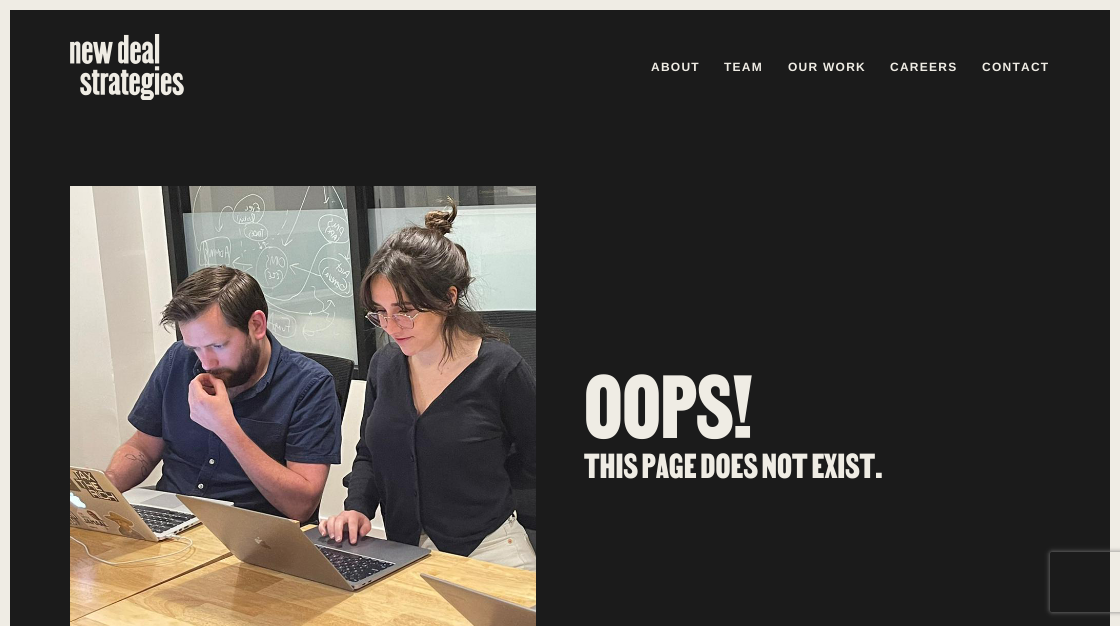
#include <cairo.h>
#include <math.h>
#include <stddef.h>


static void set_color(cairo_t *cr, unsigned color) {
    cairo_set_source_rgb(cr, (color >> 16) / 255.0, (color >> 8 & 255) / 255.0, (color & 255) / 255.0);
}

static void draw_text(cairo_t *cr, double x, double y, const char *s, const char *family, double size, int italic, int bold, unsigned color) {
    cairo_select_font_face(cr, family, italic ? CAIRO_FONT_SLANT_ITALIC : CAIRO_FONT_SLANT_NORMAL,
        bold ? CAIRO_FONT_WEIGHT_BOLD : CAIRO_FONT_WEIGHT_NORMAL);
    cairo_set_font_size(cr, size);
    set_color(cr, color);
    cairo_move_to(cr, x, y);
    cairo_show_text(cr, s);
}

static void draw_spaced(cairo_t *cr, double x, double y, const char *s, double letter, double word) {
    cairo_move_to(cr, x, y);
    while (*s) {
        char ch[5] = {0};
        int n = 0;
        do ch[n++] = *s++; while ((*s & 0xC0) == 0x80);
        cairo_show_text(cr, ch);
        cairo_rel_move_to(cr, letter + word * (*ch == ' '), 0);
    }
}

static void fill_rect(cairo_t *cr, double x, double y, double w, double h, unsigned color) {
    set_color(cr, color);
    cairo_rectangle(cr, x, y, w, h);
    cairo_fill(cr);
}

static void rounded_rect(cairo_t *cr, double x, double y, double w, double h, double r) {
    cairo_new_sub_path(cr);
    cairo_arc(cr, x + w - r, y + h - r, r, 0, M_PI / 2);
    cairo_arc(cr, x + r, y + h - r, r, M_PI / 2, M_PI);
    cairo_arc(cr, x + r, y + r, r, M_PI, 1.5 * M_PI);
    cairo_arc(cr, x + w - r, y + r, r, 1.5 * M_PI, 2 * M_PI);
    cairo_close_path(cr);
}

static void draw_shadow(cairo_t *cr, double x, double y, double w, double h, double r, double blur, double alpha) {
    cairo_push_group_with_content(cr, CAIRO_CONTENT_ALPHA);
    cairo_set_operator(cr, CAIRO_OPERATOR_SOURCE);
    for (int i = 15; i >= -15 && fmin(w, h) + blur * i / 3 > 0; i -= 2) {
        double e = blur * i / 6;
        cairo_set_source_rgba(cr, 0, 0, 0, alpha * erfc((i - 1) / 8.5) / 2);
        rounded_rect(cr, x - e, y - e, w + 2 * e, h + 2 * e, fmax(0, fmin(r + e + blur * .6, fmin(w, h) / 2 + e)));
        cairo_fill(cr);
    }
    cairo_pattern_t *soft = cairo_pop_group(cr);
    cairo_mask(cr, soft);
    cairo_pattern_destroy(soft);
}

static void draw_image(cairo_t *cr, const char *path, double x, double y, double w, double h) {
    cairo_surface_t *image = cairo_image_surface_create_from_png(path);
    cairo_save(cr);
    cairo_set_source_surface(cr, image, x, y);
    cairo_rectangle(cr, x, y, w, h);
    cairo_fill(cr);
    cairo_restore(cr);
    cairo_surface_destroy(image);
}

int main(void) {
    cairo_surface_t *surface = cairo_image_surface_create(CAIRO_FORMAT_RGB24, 1120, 626);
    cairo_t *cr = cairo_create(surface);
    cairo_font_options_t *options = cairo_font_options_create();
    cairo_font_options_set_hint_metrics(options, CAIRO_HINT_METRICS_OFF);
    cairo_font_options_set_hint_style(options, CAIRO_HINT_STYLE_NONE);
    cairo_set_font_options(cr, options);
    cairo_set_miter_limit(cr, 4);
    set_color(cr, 0xEFECE4);
    cairo_paint(cr);
    fill_rect(cr, 10, 10, 1100, 616, 0x1B1B1B);
    draw_image(cr, "assets/img1.png", 70, 34, 114, 66);
    cairo_select_font_face(cr, "Liberation Sans", CAIRO_FONT_SLANT_NORMAL, CAIRO_FONT_WEIGHT_BOLD);
    cairo_set_font_size(cr, 12);
    set_color(cr, 0xEFECE4);
    draw_spaced(cr, 651, 71, "ABOUT", 1.25, 0);
    draw_spaced(cr, 724, 71, "TEAM", 1.25, 0);
    draw_spaced(cr, 788, 71, "OUR WORK", 1.25, 0);
    draw_spaced(cr, 890, 71, "CAREERS", 1.25, 0);
    draw_spaced(cr, 982, 71, "CONTACT", 1.25, 0);
    draw_image(cr, "assets/img2.png", 70, 186, 466, 440);
    cairo_select_font_face(cr, "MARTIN", CAIRO_FONT_SLANT_NORMAL, CAIRO_FONT_WEIGHT_NORMAL);
    cairo_set_font_size(cr, 108);
    draw_spaced(cr, 584, 438, "OOPS!", -0.5, 0);
    draw_text(cr, 584, 478, "THIS PAGE DOES NOT EXIST.", "MARTIN", 42, 0, 0, 0xEFECE4);
    cairo_save(cr);
    cairo_set_fill_rule(cr, CAIRO_FILL_RULE_EVEN_ODD);
    cairo_new_path(cr);
    cairo_move_to(cr, 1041, 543);
    cairo_line_to(cr, 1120, 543);
    cairo_line_to(cr, 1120, 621);
    cairo_line_to(cr, 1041, 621);
    cairo_close_path(cr);
    cairo_move_to(cr, 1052, 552);
    cairo_line_to(cr, 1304, 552);
    cairo_curve_to(cr, 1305, 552, 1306, 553, 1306, 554);
    cairo_line_to(cr, 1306, 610);
    cairo_curve_to(cr, 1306, 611, 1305, 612, 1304, 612);
    cairo_line_to(cr, 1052, 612);
    cairo_curve_to(cr, 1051, 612, 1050, 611, 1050, 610);
    cairo_line_to(cr, 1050, 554);
    cairo_curve_to(cr, 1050, 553, 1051, 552, 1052, 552);
    cairo_close_path(cr);
    cairo_clip(cr);
    set_color(cr, 0x808080);
    draw_shadow(cr, 1050, 552, 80, 60, 2, 2.5, 1);
    cairo_restore(cr);
    cairo_surface_write_to_png(surface, "output.png");
    cairo_font_options_destroy(options);
    cairo_destroy(cr);
    cairo_surface_destroy(surface);
    return 0;
}
